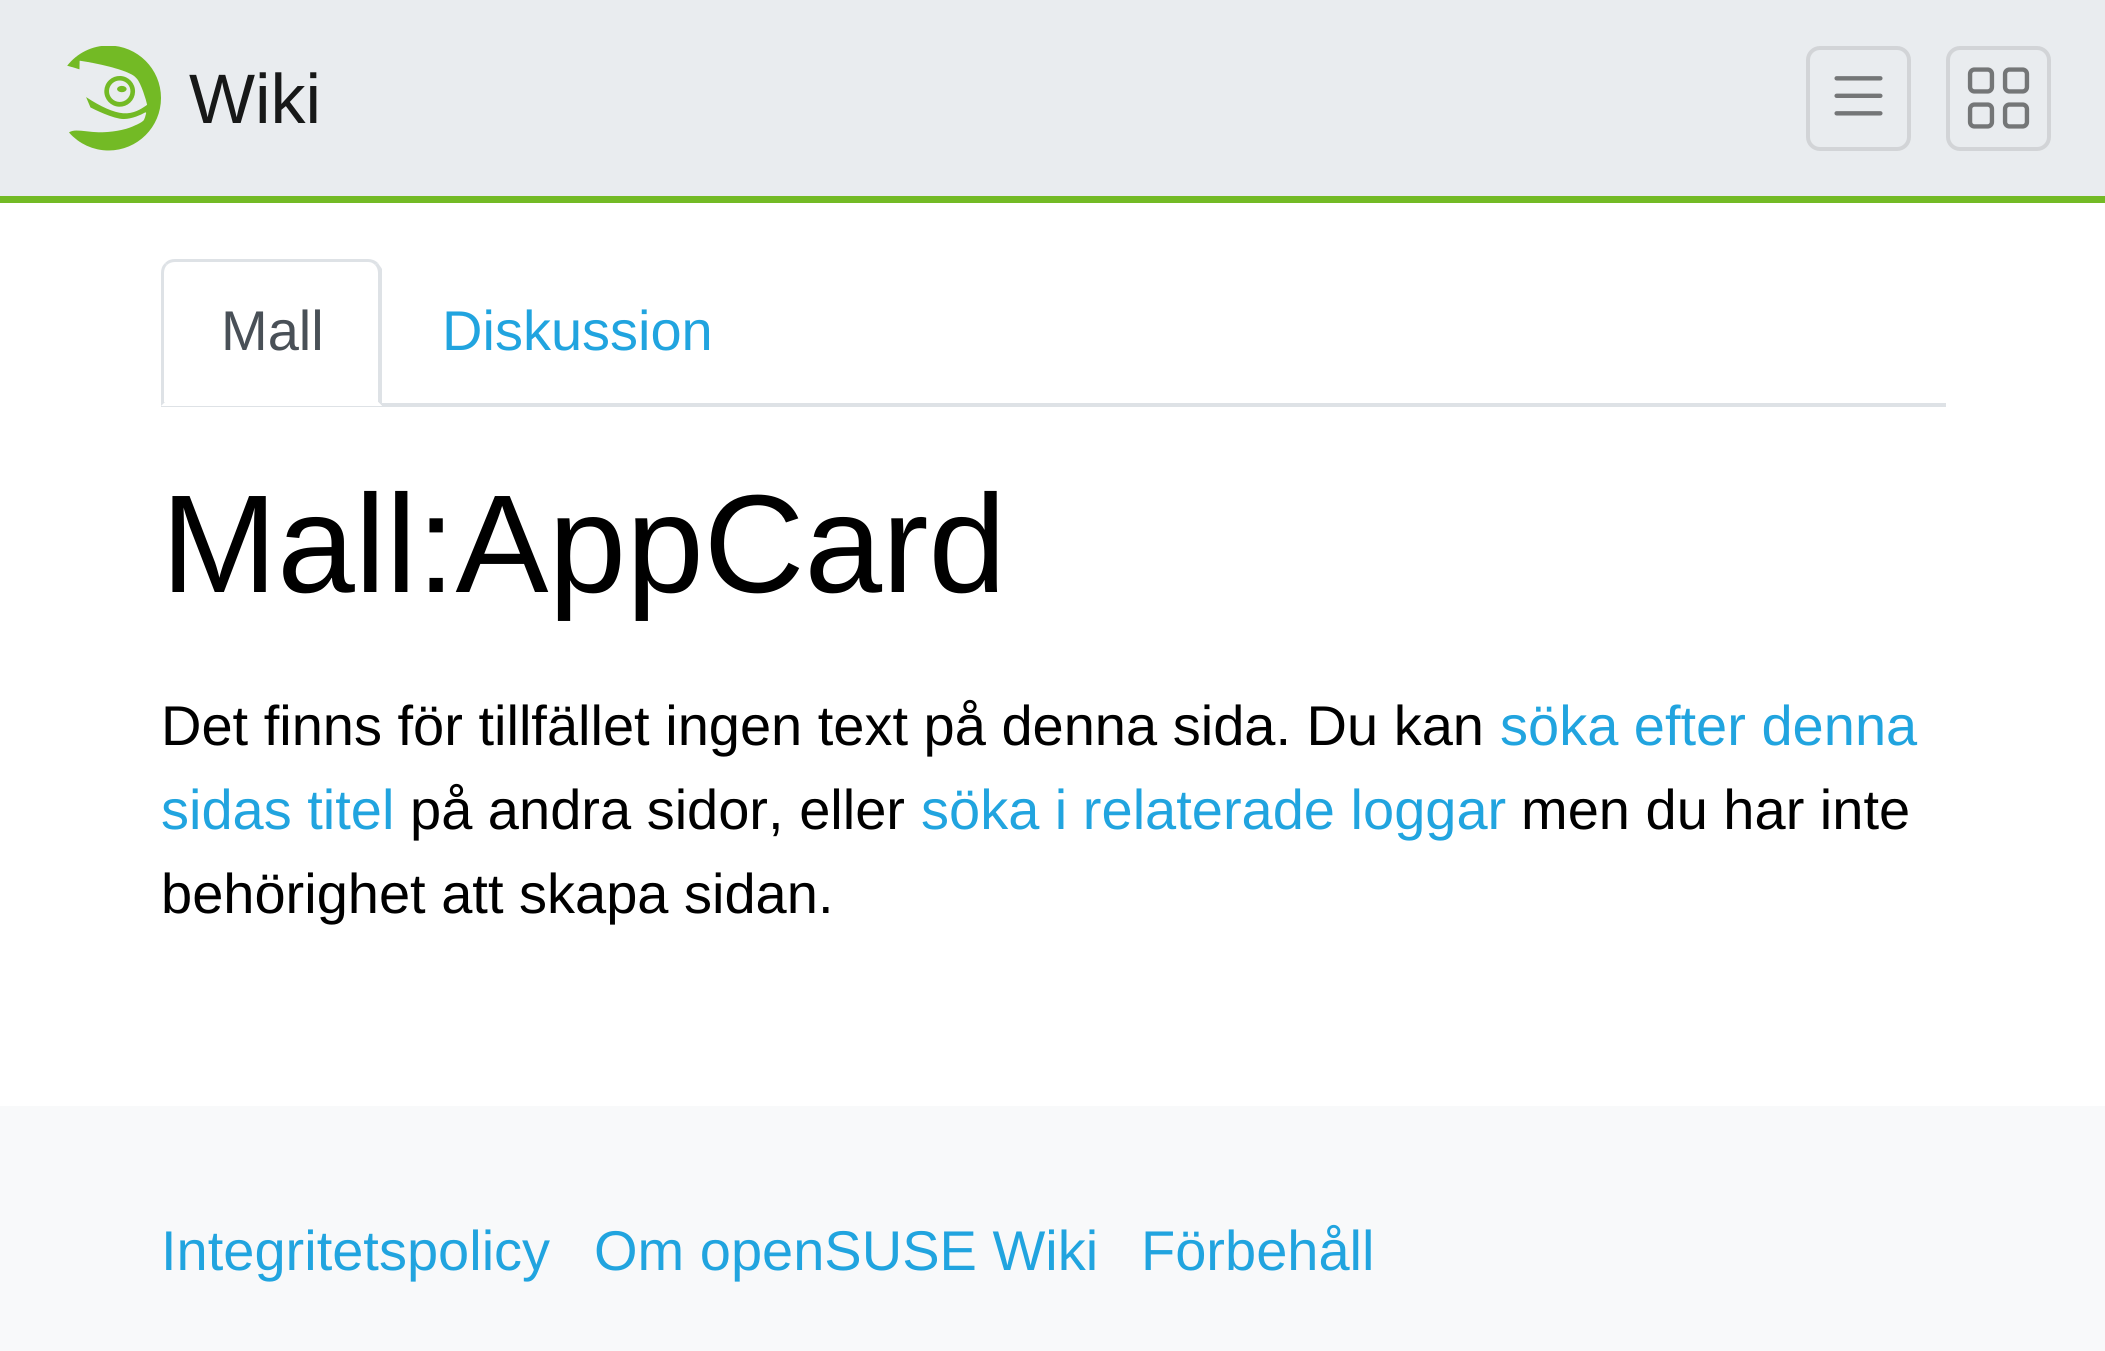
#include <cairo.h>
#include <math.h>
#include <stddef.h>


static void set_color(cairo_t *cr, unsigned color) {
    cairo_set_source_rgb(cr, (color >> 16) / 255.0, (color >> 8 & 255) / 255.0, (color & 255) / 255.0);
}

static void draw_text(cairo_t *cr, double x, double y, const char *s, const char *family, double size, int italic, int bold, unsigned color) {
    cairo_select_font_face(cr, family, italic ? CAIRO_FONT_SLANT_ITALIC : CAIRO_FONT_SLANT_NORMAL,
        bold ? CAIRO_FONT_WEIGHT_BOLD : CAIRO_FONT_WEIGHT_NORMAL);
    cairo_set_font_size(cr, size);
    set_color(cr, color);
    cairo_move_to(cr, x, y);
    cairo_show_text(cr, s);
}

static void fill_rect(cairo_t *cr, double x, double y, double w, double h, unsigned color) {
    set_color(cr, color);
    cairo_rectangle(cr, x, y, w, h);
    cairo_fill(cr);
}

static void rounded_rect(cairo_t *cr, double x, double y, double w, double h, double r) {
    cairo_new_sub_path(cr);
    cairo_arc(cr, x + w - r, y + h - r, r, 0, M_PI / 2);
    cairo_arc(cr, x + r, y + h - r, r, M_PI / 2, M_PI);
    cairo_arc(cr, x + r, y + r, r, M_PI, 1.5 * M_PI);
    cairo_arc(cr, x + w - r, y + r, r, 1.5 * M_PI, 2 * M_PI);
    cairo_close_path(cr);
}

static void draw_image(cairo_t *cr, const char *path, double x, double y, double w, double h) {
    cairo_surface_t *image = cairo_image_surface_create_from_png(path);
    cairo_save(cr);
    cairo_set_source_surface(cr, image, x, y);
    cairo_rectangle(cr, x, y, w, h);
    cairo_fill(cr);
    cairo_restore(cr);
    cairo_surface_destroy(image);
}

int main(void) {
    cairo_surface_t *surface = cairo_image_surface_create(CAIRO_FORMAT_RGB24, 2105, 1351);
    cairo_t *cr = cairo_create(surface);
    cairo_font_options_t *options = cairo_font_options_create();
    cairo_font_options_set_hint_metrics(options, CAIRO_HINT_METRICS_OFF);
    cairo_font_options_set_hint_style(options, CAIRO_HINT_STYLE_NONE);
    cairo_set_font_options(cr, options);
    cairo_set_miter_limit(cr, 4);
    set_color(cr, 0xFFFFFF);
    cairo_paint(cr);
    fill_rect(cr, 0, 0, 2105, 196, 0xE9ECEF);
    fill_rect(cr, 0, 196, 2105, 7, 0x73BA25);
    draw_image(cr, "assets/img1.png", 67, 46, 94, 105);
    draw_text(cr, 189, 123, "Wiki", "Liberation Sans", 70, 0, 0, 0x171818);
    rounded_rect(cr, 1808, 48, 101, 101, 12);
    set_color(cr, 0xD2D4D7);
    cairo_set_line_width(cr, 4);
    cairo_stroke(cr);
    draw_image(cr, "assets/img2.png", 1834, 76, 49, 40);
    rounded_rect(cr, 1948, 48, 101, 101, 12);
    cairo_stroke(cr);
    draw_image(cr, "assets/img3.png", 1967, 67, 63, 62);
    fill_rect(cr, 161, 403, 1785, 4, 0xDEE2E6);
    set_color(cr, 0xFFFFFF);
    cairo_new_path(cr);
    cairo_move_to(cr, 175, 259);
    cairo_line_to(cr, 368, 259);
    cairo_curve_to(cr, 375.5, 259, 382, 265.5, 382, 273);
    cairo_line_to(cr, 382, 406);
    cairo_line_to(cr, 161, 406);
    cairo_line_to(cr, 161, 273);
    cairo_curve_to(cr, 161, 265.5, 167.5, 259, 175, 259);
    cairo_close_path(cr);
    cairo_fill(cr);
    set_color(cr, 0xDEE2E6);
    cairo_new_path(cr);
    cairo_move_to(cr, 175, 259);
    cairo_curve_to(cr, 171, 259, 168, 260, 165, 263);
    cairo_line_to(cr, 167, 265);
    cairo_curve_to(cr, 169, 263, 172, 262, 175, 262);
    cairo_line_to(cr, 368, 262);
    cairo_curve_to(cr, 371, 262, 373, 263, 375, 265);
    cairo_line_to(cr, 378, 263);
    cairo_curve_to(cr, 375, 260, 371, 259, 368, 259);
    cairo_close_path(cr);
    cairo_fill(cr);
    cairo_new_path(cr);
    cairo_move_to(cr, 382, 269);
    cairo_line_to(cr, 382, 406);
    cairo_line_to(cr, 378, 402);
    cairo_line_to(cr, 378, 273);
    cairo_curve_to(cr, 378, 270, 377, 267, 375, 265);
    cairo_line_to(cr, 378, 263);
    cairo_curve_to(cr, 379, 265, 381, 267, 382, 269);
    cairo_close_path(cr);
    cairo_fill(cr);
    set_color(cr, 0xFFFFFF);
    cairo_new_path(cr);
    cairo_move_to(cr, 382, 406);
    cairo_line_to(cr, 378, 402);
    cairo_line_to(cr, 165, 402);
    cairo_line_to(cr, 161, 406);
    cairo_close_path(cr);
    cairo_fill(cr);
    set_color(cr, 0xDEE2E6);
    cairo_new_path(cr);
    cairo_move_to(cr, 161, 406);
    cairo_line_to(cr, 165, 402);
    cairo_line_to(cr, 164, 402);
    cairo_line_to(cr, 164, 273);
    cairo_curve_to(cr, 164, 270, 165, 267, 167, 265);
    cairo_line_to(cr, 165, 263);
    cairo_curve_to(cr, 162, 266, 161, 269, 161, 273);
    cairo_close_path(cr);
    cairo_fill(cr);
    draw_text(cr, 221, 350, "Mall", "Liberation Sans", 56, 0, 0, 0x495057);
    draw_text(cr, 442, 350, "Diskussion", "Liberation Sans", 56, 0, 0, 0x21A4DF);
    draw_text(cr, 161, 592, "Mall:AppCard", "Liberation Sans", 139.5, 0, 0, 0x000000);
    draw_text(cr, 161, 745, "Det finns för tillfället ingen text på denna sida. Du kan", "Liberation Sans", 56, 0, 0, 0x000000);
    draw_text(cr, 1500, 745, "söka efter denna", "Liberation Sans", 56, 0, 0, 0x21A4DF);
    draw_text(cr, 161, 829, "sidas titel", "Liberation Sans", 56, 0, 0, 0x21A4DF);
    draw_text(cr, 410, 829, "på andra sidor, eller", "Liberation Sans", 56, 0, 0, 0x000000);
    draw_text(cr, 921, 829, "söka i relaterade loggar", "Liberation Sans", 56, 0, 0, 0x21A4DF);
    draw_text(cr, 1521, 829, "men du har inte", "Liberation Sans", 56, 0, 0, 0x000000);
    draw_text(cr, 161, 913, "behörighet att skapa sidan.", "Liberation Sans", 56, 0, 0, 0x000000);
    fill_rect(cr, 0, 1106, 2105, 245, 0xF8F9FA);
    draw_text(cr, 161, 1270, "Integritetspolicy", "Liberation Sans", 56, 0, 0, 0x21A4DF);
    draw_text(cr, 594, 1270, "Om openSUSE Wiki", "Liberation Sans", 56, 0, 0, 0x21A4DF);
    draw_text(cr, 1141, 1270, "Förbehåll", "Liberation Sans", 56, 0, 0, 0x21A4DF);
    cairo_surface_write_to_png(surface, "output.png");
    cairo_font_options_destroy(options);
    cairo_destroy(cr);
    cairo_surface_destroy(surface);
    return 0;
}
